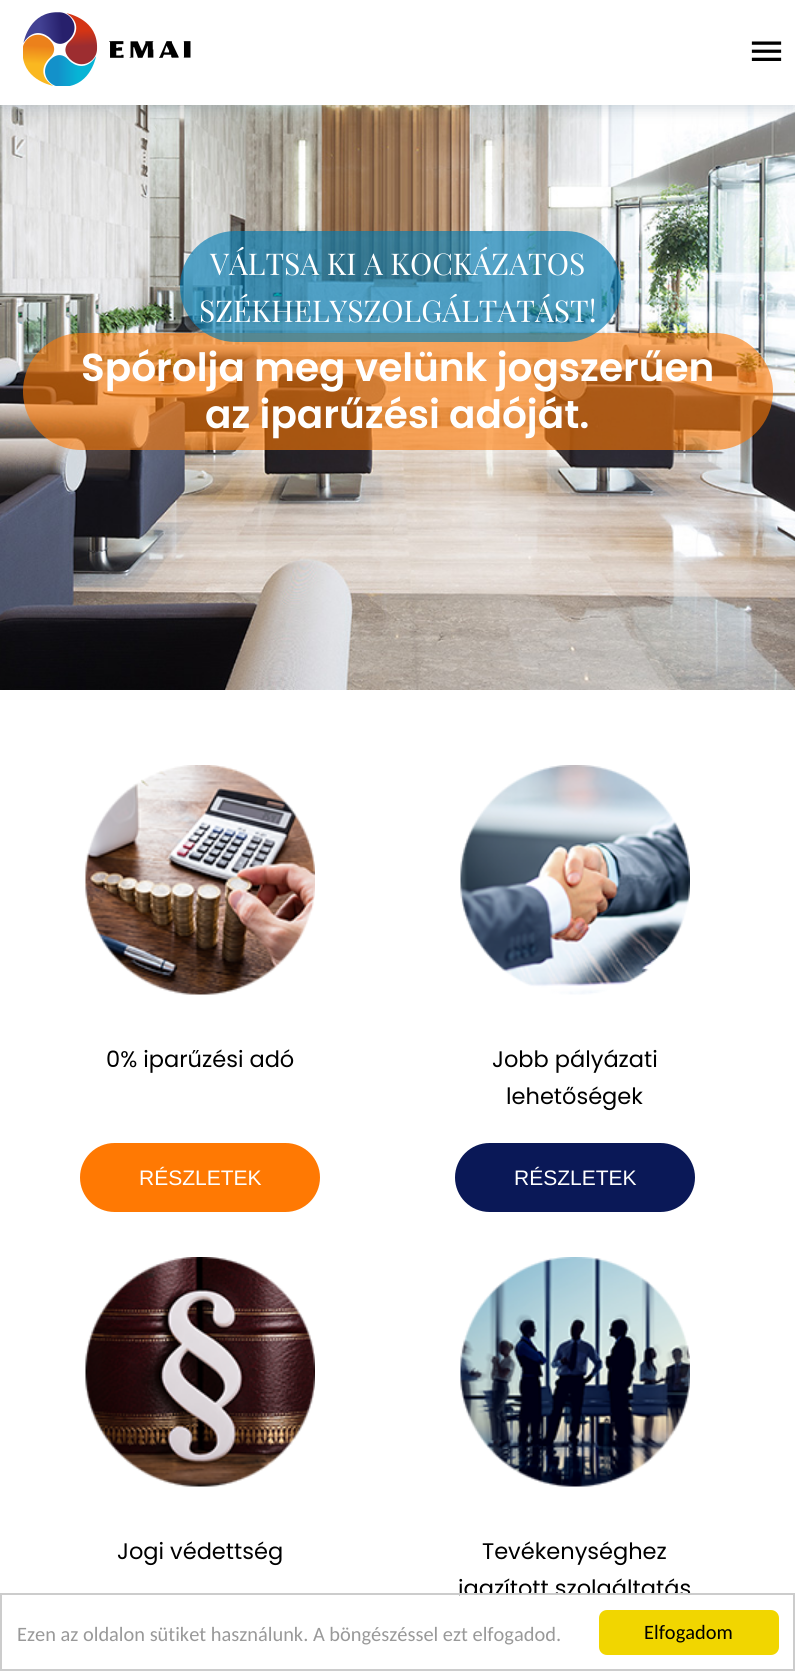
#include <cairo.h>
#include <math.h>
#include <stddef.h>


static void set_color(cairo_t *cr, unsigned color) {
    cairo_set_source_rgb(cr, (color >> 16) / 255.0, (color >> 8 & 255) / 255.0, (color & 255) / 255.0);
}

static void draw_text(cairo_t *cr, double x, double y, const char *s, const char *family, double size, int italic, int bold, unsigned color) {
    cairo_select_font_face(cr, family, italic ? CAIRO_FONT_SLANT_ITALIC : CAIRO_FONT_SLANT_NORMAL,
        bold ? CAIRO_FONT_WEIGHT_BOLD : CAIRO_FONT_WEIGHT_NORMAL);
    cairo_set_font_size(cr, size);
    set_color(cr, color);
    cairo_move_to(cr, x, y);
    cairo_show_text(cr, s);
}

static void fill_rect(cairo_t *cr, double x, double y, double w, double h, unsigned color) {
    set_color(cr, color);
    cairo_rectangle(cr, x, y, w, h);
    cairo_fill(cr);
}

static void rounded_rect(cairo_t *cr, double x, double y, double w, double h, double r) {
    cairo_new_sub_path(cr);
    cairo_arc(cr, x + w - r, y + h - r, r, 0, M_PI / 2);
    cairo_arc(cr, x + r, y + h - r, r, M_PI / 2, M_PI);
    cairo_arc(cr, x + r, y + r, r, M_PI, 1.5 * M_PI);
    cairo_arc(cr, x + w - r, y + r, r, 1.5 * M_PI, 2 * M_PI);
    cairo_close_path(cr);
}

static void draw_shadow(cairo_t *cr, double x, double y, double w, double h, double r, double blur, double alpha) {
    cairo_push_group_with_content(cr, CAIRO_CONTENT_ALPHA);
    cairo_set_operator(cr, CAIRO_OPERATOR_SOURCE);
    for (int i = 15; i >= -15 && fmin(w, h) + blur * i / 3 > 0; i -= 2) {
        double e = blur * i / 6;
        cairo_set_source_rgba(cr, 0, 0, 0, alpha * erfc((i - 1) / 8.5) / 2);
        rounded_rect(cr, x - e, y - e, w + 2 * e, h + 2 * e, fmax(0, fmin(r + e + blur * .6, fmin(w, h) / 2 + e)));
        cairo_fill(cr);
    }
    cairo_pattern_t *soft = cairo_pop_group(cr);
    cairo_mask(cr, soft);
    cairo_pattern_destroy(soft);
}

static void draw_image(cairo_t *cr, const char *path, double x, double y, double w, double h) {
    cairo_surface_t *image = cairo_image_surface_create_from_png(path);
    cairo_save(cr);
    cairo_set_source_surface(cr, image, x, y);
    cairo_rectangle(cr, x, y, w, h);
    cairo_fill(cr);
    cairo_restore(cr);
    cairo_surface_destroy(image);
}

int main(void) {
    cairo_surface_t *surface = cairo_image_surface_create(CAIRO_FORMAT_RGB24, 795, 1671);
    cairo_t *cr = cairo_create(surface);
    cairo_font_options_t *options = cairo_font_options_create();
    cairo_font_options_set_hint_metrics(options, CAIRO_HINT_METRICS_OFF);
    cairo_font_options_set_hint_style(options, CAIRO_HINT_STYLE_NONE);
    cairo_set_font_options(cr, options);
    cairo_set_miter_limit(cr, 4);
    set_color(cr, 0xFFFFFF);
    cairo_paint(cr);
    draw_image(cr, "assets/img3.png", 0, 105, 795, 585);
    set_color(cr, 0x23425A);
    draw_shadow(cr, 0, 3, 795, 105, 0, 7.5, 0.2);
    fill_rect(cr, 0, 0, 795, 105, 0xFFFFFF);
    draw_image(cr, "assets/img1.png", 23, 12, 168, 74);
    draw_image(cr, "assets/img2.png", 751, 41, 31, 20);
    cairo_set_source_rgba(cr, 1, 0.475, 0.012, 0.6);
    rounded_rect(cr, 23, 333, 750, 117, 58.5);
    cairo_fill(cr);
    cairo_set_source_rgba(cr, 0, 0.486, 0.706, 0.64);
    rounded_rect(cr, 180, 231, 441, 111, 55.5);
    cairo_fill(cr);
    draw_text(cr, 210, 275, "VÁLTSA KI A KOCKÁZATOS", "Playfair Display", 30, 0, 0, 0xFFFFFF);
    draw_text(cr, 199, 322, "SZÉKHELYSZOLGÁLTATÁST!", "Playfair Display", 30, 0, 0, 0xFFFFFF);
    draw_text(cr, 81, 381, "Spórolja meg velünk jogszerűen", "Poppins SemiBold", 39, 0, 0, 0xFFFFFF);
    draw_text(cr, 205, 428, "az iparűzési adóját.", "Poppins SemiBold", 39, 0, 0, 0xFFFFFF);
    draw_image(cr, "assets/img4.png", 85, 765, 230, 230);
    draw_text(cr, 106, 1067, "0% iparűzési adó", "Poppins", 22.5, 0, 0, 0x000000);
    set_color(cr, 0xFF7903);
    rounded_rect(cr, 80, 1143, 240, 69, 34.5);
    cairo_fill(cr);
    draw_text(cr, 139, 1185, "RÉSZLETEK", "Liberation Sans", 21, 0, 0, 0xFFFFFF);
    draw_image(cr, "assets/img5.png", 460, 765, 230, 230);
    draw_text(cr, 492, 1067, "Jobb pályázati", "Poppins", 22.5, 0, 0, 0x000000);
    draw_text(cr, 506, 1104, "lehetőségek", "Poppins", 22.5, 0, 0, 0x000000);
    set_color(cr, 0x0A1857);
    rounded_rect(cr, 455, 1143, 240, 69, 34.5);
    cairo_fill(cr);
    draw_text(cr, 514, 1185, "RÉSZLETEK", "Liberation Sans", 21, 0, 0, 0xFFFFFF);
    draw_image(cr, "assets/img6.png", 85, 1257, 230, 230);
    draw_text(cr, 117, 1559, "Jogi védettség", "Poppins", 22.5, 0, 0, 0x000000);
    draw_image(cr, "assets/img7.png", 460, 1257, 230, 230);
    draw_text(cr, 482, 1559, "Tevékenységhez", "Poppins", 22.5, 0, 0, 0x000000);
    draw_text(cr, 458, 1596, "igazított szolgáltatás", "Poppins", 22.5, 0, 0, 0x000000);
    fill_rect(cr, 460, 1595, 230, 8, 0xFFFFFF);
    cairo_rectangle(cr, 1, 1594, 793, 76);
    set_color(cr, 0xCCCCCC);
    cairo_stroke(cr);
    draw_text(cr, 17, 1641, "Ezen az oldalon sütiket használunk. A böngészéssel ezt elfogadod.", "Carlito", 20.4, 0, 0, 0x999999);
    set_color(cr, 0xF1D600);
    rounded_rect(cr, 599, 1610, 180, 45, 8);
    cairo_fill(cr);
    draw_text(cr, 644, 1639, "Elfogadom", "Carlito", 20.4, 0, 0, 0x000000);
    cairo_surface_write_to_png(surface, "output.png");
    cairo_font_options_destroy(options);
    cairo_destroy(cr);
    cairo_surface_destroy(surface);
    return 0;
}
